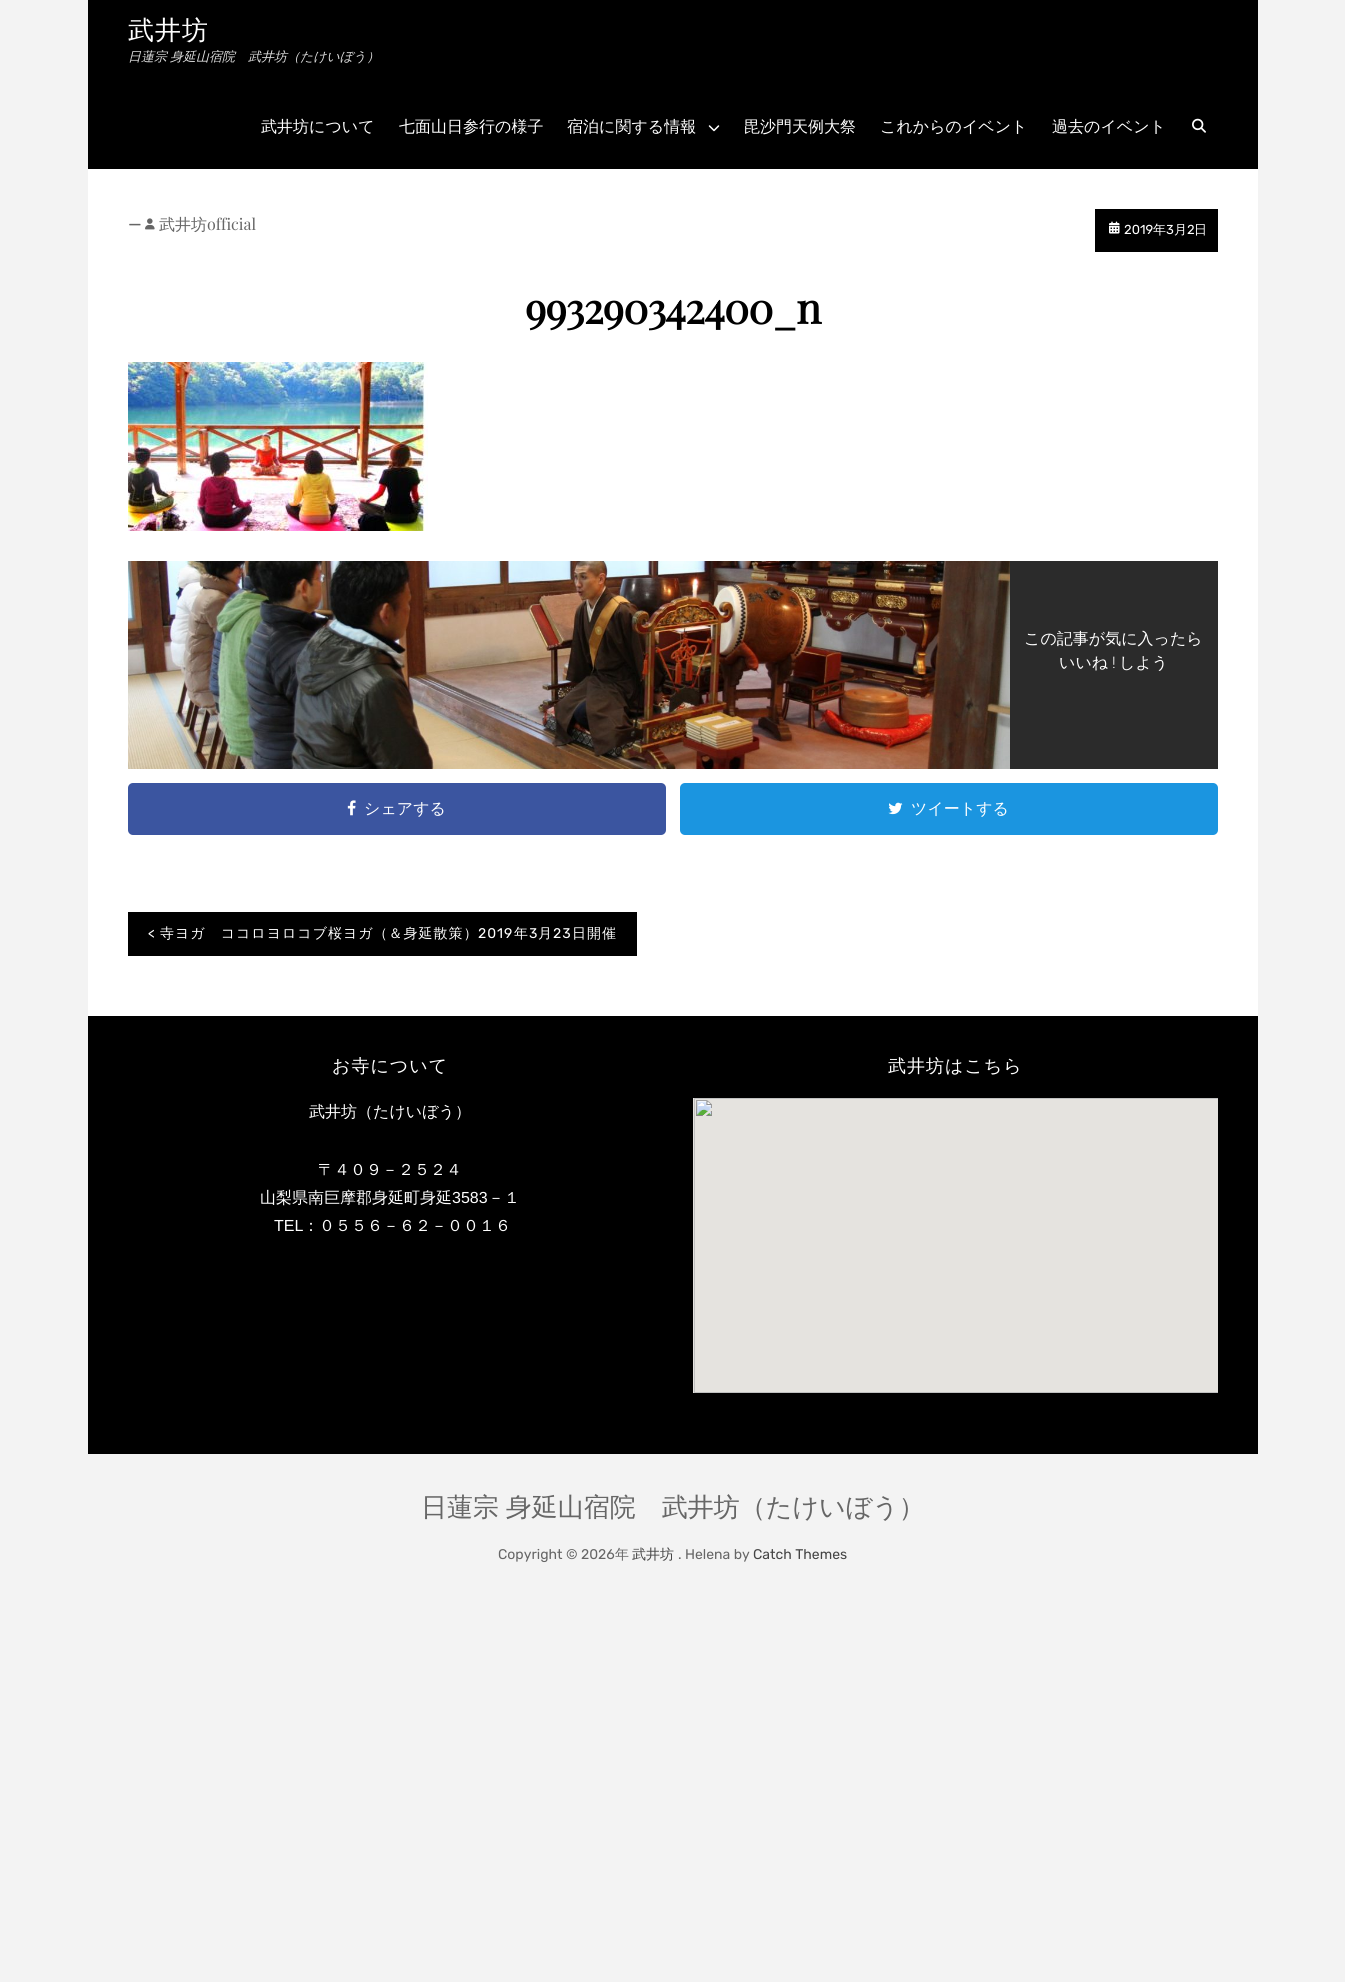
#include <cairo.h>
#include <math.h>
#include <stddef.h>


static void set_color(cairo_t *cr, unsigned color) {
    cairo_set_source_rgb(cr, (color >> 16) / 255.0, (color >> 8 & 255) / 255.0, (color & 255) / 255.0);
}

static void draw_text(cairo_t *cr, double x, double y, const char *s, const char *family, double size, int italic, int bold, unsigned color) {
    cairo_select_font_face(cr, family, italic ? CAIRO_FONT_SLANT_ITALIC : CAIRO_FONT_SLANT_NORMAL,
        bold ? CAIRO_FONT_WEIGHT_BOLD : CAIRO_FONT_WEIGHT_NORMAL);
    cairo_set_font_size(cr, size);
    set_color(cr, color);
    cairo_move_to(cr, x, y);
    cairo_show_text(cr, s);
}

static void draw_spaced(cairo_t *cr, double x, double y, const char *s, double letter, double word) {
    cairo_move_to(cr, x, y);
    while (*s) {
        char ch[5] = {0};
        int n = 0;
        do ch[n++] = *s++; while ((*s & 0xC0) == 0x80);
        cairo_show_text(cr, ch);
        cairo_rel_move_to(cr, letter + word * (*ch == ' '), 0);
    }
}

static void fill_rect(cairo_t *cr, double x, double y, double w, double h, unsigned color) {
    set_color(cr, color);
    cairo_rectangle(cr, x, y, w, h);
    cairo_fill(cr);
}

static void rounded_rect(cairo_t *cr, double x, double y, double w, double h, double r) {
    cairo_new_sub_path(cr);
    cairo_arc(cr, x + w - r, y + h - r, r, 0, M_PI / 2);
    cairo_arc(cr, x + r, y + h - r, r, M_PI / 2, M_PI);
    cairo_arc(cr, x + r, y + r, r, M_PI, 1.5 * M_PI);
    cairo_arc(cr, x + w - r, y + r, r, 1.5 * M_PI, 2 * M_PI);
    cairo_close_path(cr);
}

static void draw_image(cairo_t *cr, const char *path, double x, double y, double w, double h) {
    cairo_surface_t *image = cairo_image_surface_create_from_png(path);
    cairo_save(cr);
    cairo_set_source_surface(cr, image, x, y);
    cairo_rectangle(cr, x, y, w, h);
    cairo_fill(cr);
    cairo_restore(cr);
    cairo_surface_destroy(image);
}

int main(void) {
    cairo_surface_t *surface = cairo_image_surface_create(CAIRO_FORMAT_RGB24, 1345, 1982);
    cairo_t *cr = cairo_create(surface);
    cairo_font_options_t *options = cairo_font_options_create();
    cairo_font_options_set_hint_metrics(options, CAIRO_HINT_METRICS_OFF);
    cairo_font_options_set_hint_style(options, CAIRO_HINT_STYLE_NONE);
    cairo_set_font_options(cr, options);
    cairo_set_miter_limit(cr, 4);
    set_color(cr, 0xF3F3F3);
    cairo_paint(cr);
    fill_rect(cr, 88, 0, 1170, 169, 0x000000);
    cairo_select_font_face(cr, "WenQuanYi Zen Hei Medium", CAIRO_FONT_SLANT_NORMAL, CAIRO_FONT_WEIGHT_NORMAL);
    cairo_set_font_size(cr, 26);
    set_color(cr, 0xFFFFFF);
    draw_spaced(cr, 128, 39, "武井坊", 1, 0);
    cairo_select_font_face(cr, "WenQuanYi Zen Hei Medium", CAIRO_FONT_SLANT_ITALIC, CAIRO_FONT_WEIGHT_NORMAL);
    cairo_set_font_size(cr, 13);
    set_color(cr, 0xDDDDDD);
    draw_spaced(cr, 128, 61, "日蓮宗 身延山宿院　武井坊（たけいぼう）", 0, -1);
    draw_text(cr, 261, 132, "武井坊について", "WenQuanYi Zen Hei Medium", 16, 0, 0, 0xFFFFFF);
    draw_text(cr, 399, 132, "七面山日参行の様子", "WenQuanYi Zen Hei Medium", 16, 0, 0, 0xFFFFFF);
    draw_text(cr, 567, 132, "宿泊に関する情報", "WenQuanYi Zen Hei Medium", 16, 0, 0, 0xFFFFFF);
    draw_image(cr, "assets/img1.png", 708, 125, 12, 7);
    draw_text(cr, 744, 132, "毘沙門天例大祭", "WenQuanYi Zen Hei Medium", 16, 0, 0, 0xFFFFFF);
    draw_text(cr, 880, 132, "これからのイベント", "WenQuanYi Zen Hei Medium", 16, 0, 0, 0xFFFFFF);
    draw_text(cr, 1052, 132, "過去のイベント", "WenQuanYi Zen Hei Medium", 16, 0, 0, 0xFFFFFF);
    draw_image(cr, "assets/img2.png", 1192, 118, 14, 15);
    fill_rect(cr, 88, 169, 1170, 847, 0xFFFFFF);
    draw_text(cr, 128, 230, "—", "Rubik Light", 18, 0, 0, 0x666666);
    draw_image(cr, "assets/img3.png", 145, 218, 10, 12);
    draw_text(cr, 159, 230, "武井坊", "WenQuanYi Zen Hei Medium", 16, 0, 0, 0x666666);
    draw_text(cr, 207, 230, "official", "Playfair Display", 16, 0, 0, 0x666666);
    fill_rect(cr, 1095, 209, 123, 43, 0x000000);
    draw_image(cr, "assets/img4.png", 1109, 221, 11, 13);
    draw_text(cr, 1124, 234, "2019", "Rubik Light", 13, 0, 0, 0xFFFFFF);
    draw_text(cr, 1153, 234, "年", "WenQuanYi Zen Hei Medium", 13, 0, 0, 0xFFFFFF);
    draw_text(cr, 1166, 234, "3", "Rubik Light", 13, 0, 0, 0xFFFFFF);
    draw_text(cr, 1174, 234, "月", "WenQuanYi Zen Hei Medium", 13, 0, 0, 0xFFFFFF);
    draw_text(cr, 1187, 234, "2", "Rubik Light", 13, 0, 0, 0xFFFFFF);
    draw_text(cr, 1194, 234, "日", "WenQuanYi Zen Hei Medium", 13, 0, 0, 0xFFFFFF);
    cairo_select_font_face(cr, "Playfair Display", CAIRO_FONT_SLANT_NORMAL, CAIRO_FONT_WEIGHT_BOLD);
    cairo_set_font_size(cr, 42);
    set_color(cr, 0x000000);
    draw_spaced(cr, 525, 324, "993290342400_n", -1, 0);
    draw_image(cr, "assets/img5.png", 128, 362, 300, 169);
    draw_image(cr, "assets/img6.png", 128, 561, 882, 208);
    fill_rect(cr, 1010, 561, 208, 208, 0x2B2B2B);
    draw_text(cr, 1024, 644, "この記事が気に入ったら", "WenQuanYi Zen Hei Medium", 16, 0, 0, 0xFFFFFF);
    draw_text(cr, 1059, 668, "いいね", "WenQuanYi Zen Hei Medium", 16, 0, 0, 0xFFFFFF);
    draw_text(cr, 1112, 668, "!", "Roboto Light", 16, 0, 0, 0xFFFFFF);
    draw_text(cr, 1119, 668, "しよう", "WenQuanYi Zen Hei Medium", 16, 0, 0, 0xFFFFFF);
    set_color(cr, 0x3B55A0);
    rounded_rect(cr, 128, 783, 538, 52, 5);
    cairo_fill(cr);
    draw_image(cr, "assets/img7.png", 347, 800, 9, 16);
    draw_text(cr, 364, 814, "シェアする", "WenQuanYi Zen Hei Medium", 16, 0, 0, 0xFFFFFF);
    set_color(cr, 0x1B95E0);
    rounded_rect(cr, 680, 783, 538, 52, 5);
    cairo_fill(cr);
    draw_image(cr, "assets/img8.png", 888, 802, 15, 13);
    draw_text(cr, 911, 814, "ツイートする", "WenQuanYi Zen Hei Medium", 16, 0, 0, 0xFFFFFF);
    fill_rect(cr, 128, 912, 509, 44, 0x000000);
    cairo_select_font_face(cr, "Rubik Light", CAIRO_FONT_SLANT_NORMAL, CAIRO_FONT_WEIGHT_NORMAL);
    cairo_set_font_size(cr, 14);
    set_color(cr, 0xFFFFFF);
    draw_spaced(cr, 148, 938, "<", 1, 0);
    cairo_select_font_face(cr, "WenQuanYi Zen Hei Medium", CAIRO_FONT_SLANT_NORMAL, CAIRO_FONT_WEIGHT_NORMAL);
    draw_spaced(cr, 160, 938, "寺ヨガ　ココロヨロコブ桜ヨガ（＆身延散策）", 1, 0);
    cairo_select_font_face(cr, "Rubik Light", CAIRO_FONT_SLANT_NORMAL, CAIRO_FONT_WEIGHT_NORMAL);
    draw_spaced(cr, 478, 938, "2019", 1, 0);
    cairo_select_font_face(cr, "WenQuanYi Zen Hei Medium", CAIRO_FONT_SLANT_NORMAL, CAIRO_FONT_WEIGHT_NORMAL);
    draw_spaced(cr, 514, 938, "年", 1, 0);
    cairo_select_font_face(cr, "Rubik Light", CAIRO_FONT_SLANT_NORMAL, CAIRO_FONT_WEIGHT_NORMAL);
    draw_spaced(cr, 529, 938, "3", 1, 0);
    cairo_select_font_face(cr, "WenQuanYi Zen Hei Medium", CAIRO_FONT_SLANT_NORMAL, CAIRO_FONT_WEIGHT_NORMAL);
    draw_spaced(cr, 538, 938, "月", 1, 0);
    cairo_select_font_face(cr, "Rubik Light", CAIRO_FONT_SLANT_NORMAL, CAIRO_FONT_WEIGHT_NORMAL);
    draw_spaced(cr, 553, 938, "23", 1, 0);
    cairo_select_font_face(cr, "WenQuanYi Zen Hei Medium", CAIRO_FONT_SLANT_NORMAL, CAIRO_FONT_WEIGHT_NORMAL);
    draw_spaced(cr, 572, 938, "日開催", 1, 0);
    fill_rect(cr, 88, 1016, 1170, 438, 0x000000);
    cairo_set_font_size(cr, 18);
    set_color(cr, 0xFFFFFF);
    draw_spaced(cr, 332, 1072, "お寺について", 1, 0);
    draw_text(cr, 309, 1117, "武井坊（たけいぼう）", "WenQuanYi Zen Hei Medium", 16, 0, 0, 0xFFFFFF);
    draw_text(cr, 318, 1175, "〒４０９－２５２４", "WenQuanYi Zen Hei Medium", 16, 0, 0, 0xFFFFFF);
    draw_text(cr, 260, 1203, "山梨県南巨摩郡身延町身延", "WenQuanYi Zen Hei Medium", 16, 0, 0, 0xFFFFFF);
    draw_text(cr, 452, 1203, "3583", "Liberation Sans", 16, 0, 0, 0xFFFFFF);
    draw_text(cr, 488, 1203, "－１", "WenQuanYi Zen Hei Medium", 16, 0, 0, 0xFFFFFF);
    draw_text(cr, 274, 1231, "TEL", "Liberation Sans", 16, 0, 0, 0xFFFFFF);
    draw_text(cr, 303, 1231, "：０５５６－６２－００１６", "WenQuanYi Zen Hei Medium", 16, 0, 0, 0xFFFFFF);
    cairo_set_font_size(cr, 18);
    draw_spaced(cr, 888, 1072, "武井坊はこちら", 1, 0);
    draw_image(cr, "assets/img9.png", 693, 1098, 525, 295);
    cairo_set_font_size(cr, 26);
    set_color(cr, 0x666666);
    draw_spaced(cr, 421, 1516, "日蓮宗 身延山宿院　武井坊（たけいぼう）", 0, -1);
    draw_text(cr, 498, 1559, "Copyright © 2026", "Rubik Light", 14, 0, 0, 0x666666);
    draw_text(cr, 615, 1559, "年", "WenQuanYi Zen Hei Medium", 14, 0, 0, 0x666666);
    draw_text(cr, 632, 1559, "武井坊", "WenQuanYi Zen Hei Medium", 14, 0, 0, 0x444444);
    draw_text(cr, 678, 1559, ". Helena by", "Rubik Light", 14, 0, 0, 0x666666);
    draw_text(cr, 753, 1559, "Catch Themes", "Rubik Light", 14, 0, 0, 0x444444);
    cairo_surface_write_to_png(surface, "output.png");
    cairo_font_options_destroy(options);
    cairo_destroy(cr);
    cairo_surface_destroy(surface);
    return 0;
}
